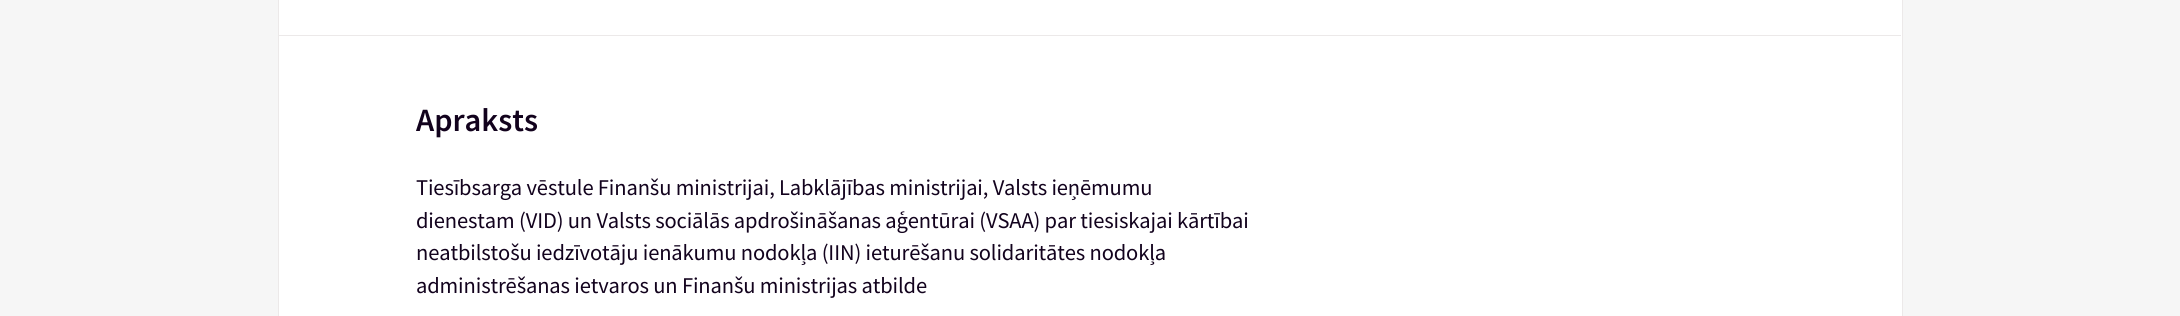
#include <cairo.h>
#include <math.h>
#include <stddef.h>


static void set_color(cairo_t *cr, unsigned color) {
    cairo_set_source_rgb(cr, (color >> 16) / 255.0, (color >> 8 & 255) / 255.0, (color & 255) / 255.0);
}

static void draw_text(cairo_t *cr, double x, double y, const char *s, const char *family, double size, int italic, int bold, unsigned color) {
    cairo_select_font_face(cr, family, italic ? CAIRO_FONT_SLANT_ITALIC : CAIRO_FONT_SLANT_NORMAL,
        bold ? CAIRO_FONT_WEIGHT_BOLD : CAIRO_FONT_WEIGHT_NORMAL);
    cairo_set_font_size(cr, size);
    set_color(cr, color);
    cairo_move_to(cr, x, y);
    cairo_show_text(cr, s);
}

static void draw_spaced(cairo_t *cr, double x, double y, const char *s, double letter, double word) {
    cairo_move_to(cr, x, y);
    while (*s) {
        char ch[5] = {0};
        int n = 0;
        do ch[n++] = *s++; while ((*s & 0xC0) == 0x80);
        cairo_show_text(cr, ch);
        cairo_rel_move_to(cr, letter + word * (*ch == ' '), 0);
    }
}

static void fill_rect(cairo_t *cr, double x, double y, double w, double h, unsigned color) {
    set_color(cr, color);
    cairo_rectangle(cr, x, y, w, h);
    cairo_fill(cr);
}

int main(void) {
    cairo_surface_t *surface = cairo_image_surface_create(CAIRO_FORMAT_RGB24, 2180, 316);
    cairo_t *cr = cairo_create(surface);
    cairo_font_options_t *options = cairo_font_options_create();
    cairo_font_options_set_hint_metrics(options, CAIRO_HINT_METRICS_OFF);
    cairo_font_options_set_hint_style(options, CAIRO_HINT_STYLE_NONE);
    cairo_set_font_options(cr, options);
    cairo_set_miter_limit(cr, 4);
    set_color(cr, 0xF6F6F6);
    cairo_paint(cr);
    set_color(cr, 0xFFFFFF);
    cairo_rectangle(cr, 278.5, -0.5, 1624, 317);
    cairo_fill_preserve(cr);
    set_color(cr, 0xECE9E9);
    cairo_set_line_width(cr, 1);
    cairo_stroke(cr);
    fill_rect(cr, 279, 35, 1622, 1, 0xECE9E9);
    draw_text(cr, 416, 131, "Apraksts", "Source Sans Pro SemiBold", 32.5, 0, 0, 0x12021D);
    cairo_select_font_face(cr, "Source Sans Pro", CAIRO_FONT_SLANT_NORMAL, CAIRO_FONT_WEIGHT_NORMAL);
    cairo_set_font_size(cr, 22.5);
    draw_spaced(cr, 416, 195, "Tiesībsarga vēstule Finanšu ministrijai, Labklājības ministrijai, Valsts ieņēmumu", -0.12, 0);
    draw_spaced(cr, 416, 228, "dienestam (VID) un Valsts sociālās apdrošināšanas aģentūrai (VSAA) par tiesiskajai kārtībai", -0.12, 0);
    draw_spaced(cr, 416, 260, "neatbilstošu iedzīvotāju ienākumu nodokļa (IIN) ieturēšanu solidaritātes nodokļa", -0.12, 0);
    draw_spaced(cr, 416, 293, "administrēšanas ietvaros un Finanšu ministrijas atbilde", -0.12, 0);
    cairo_surface_write_to_png(surface, "output.png");
    cairo_font_options_destroy(options);
    cairo_destroy(cr);
    cairo_surface_destroy(surface);
    return 0;
}
